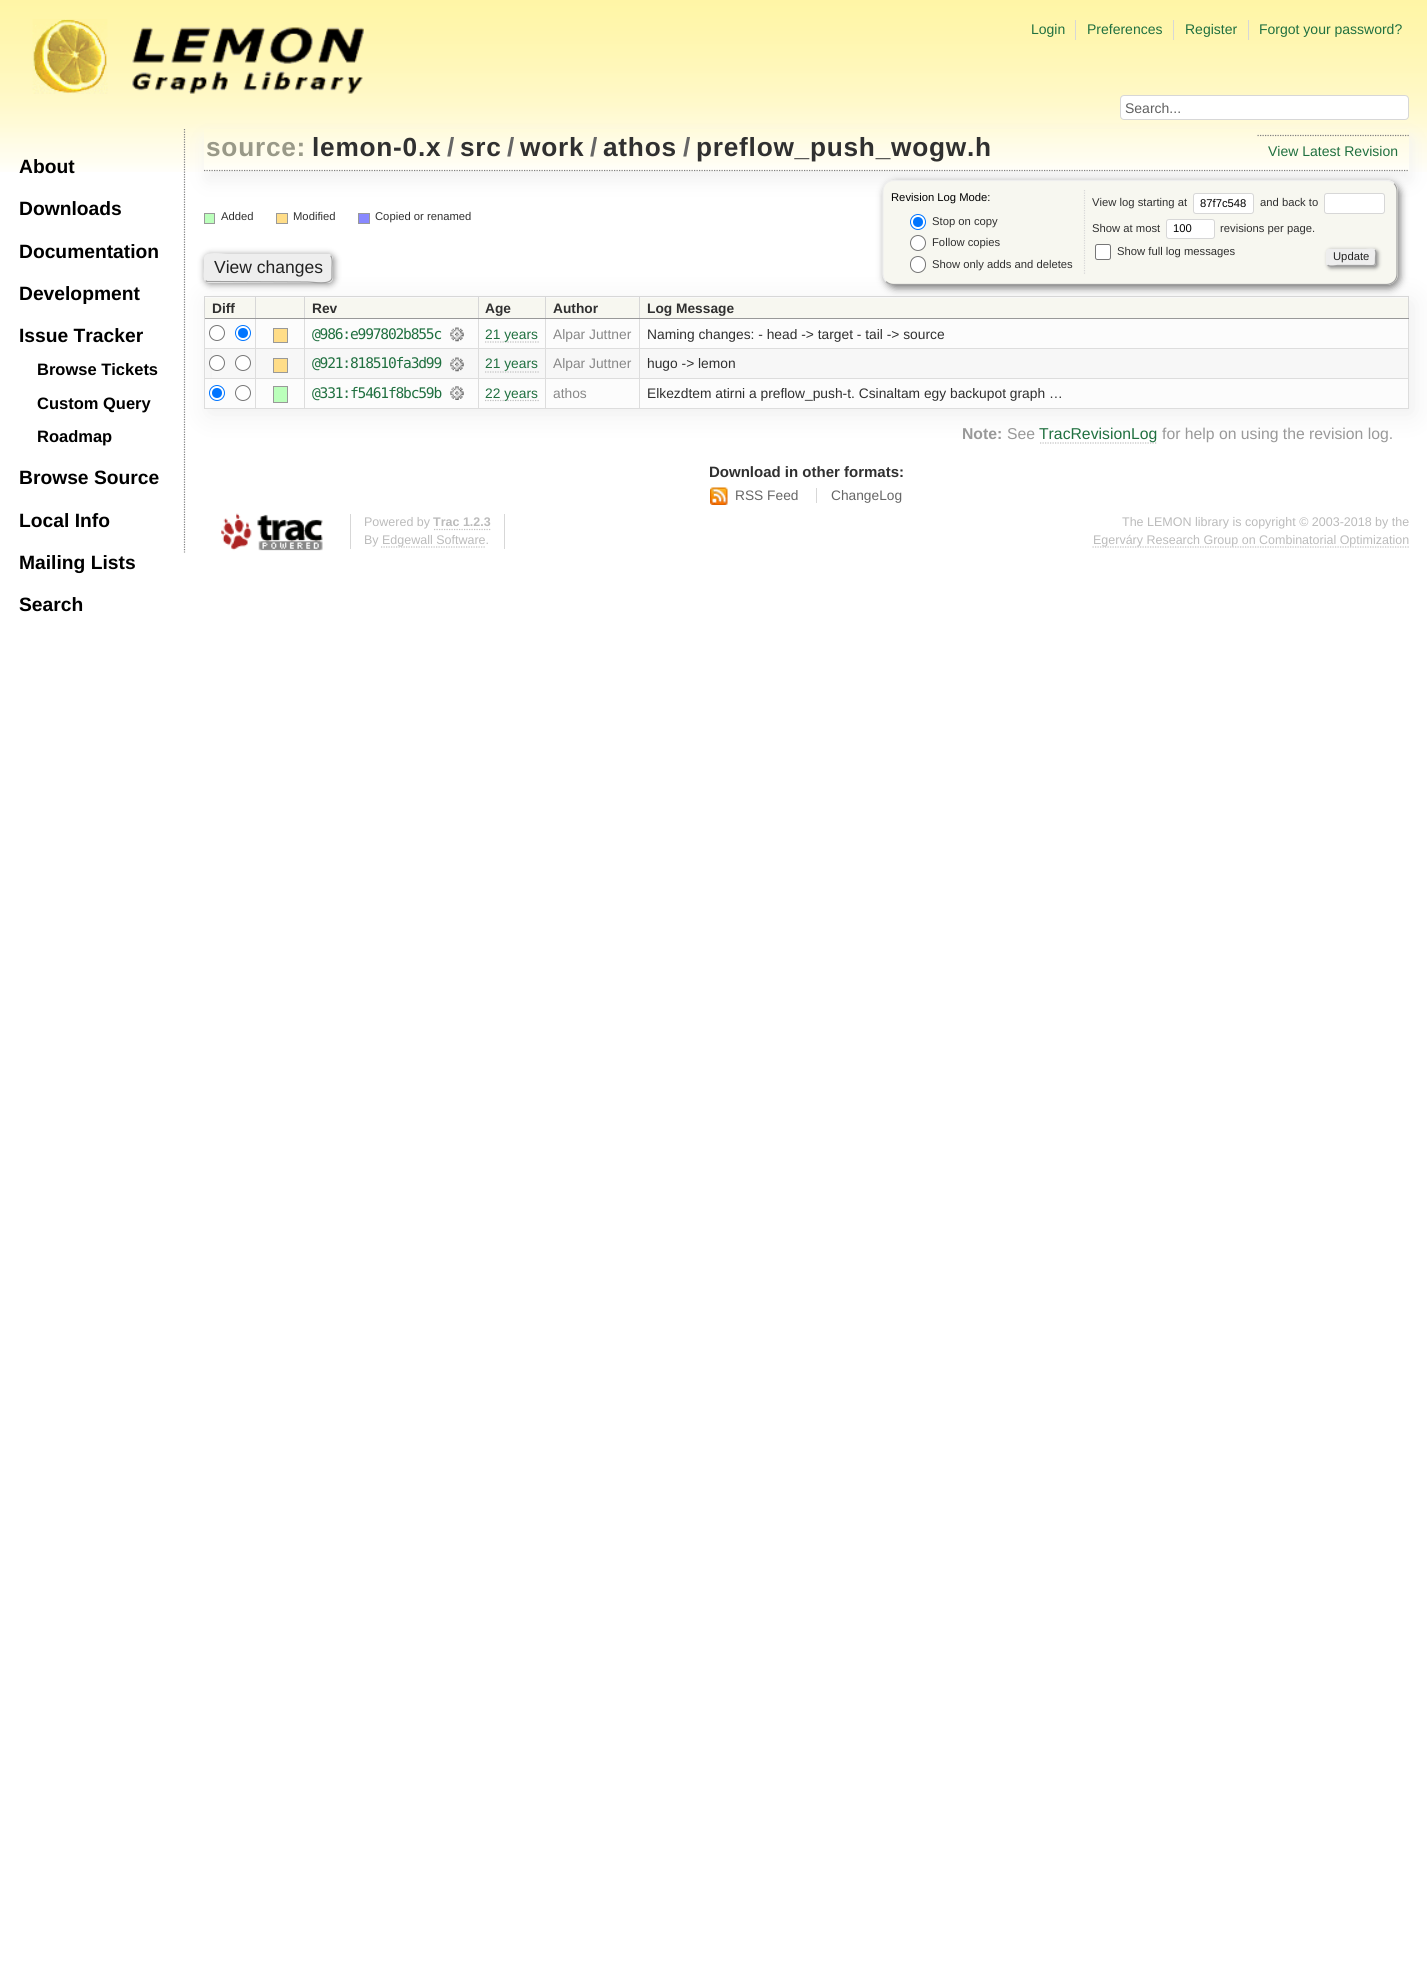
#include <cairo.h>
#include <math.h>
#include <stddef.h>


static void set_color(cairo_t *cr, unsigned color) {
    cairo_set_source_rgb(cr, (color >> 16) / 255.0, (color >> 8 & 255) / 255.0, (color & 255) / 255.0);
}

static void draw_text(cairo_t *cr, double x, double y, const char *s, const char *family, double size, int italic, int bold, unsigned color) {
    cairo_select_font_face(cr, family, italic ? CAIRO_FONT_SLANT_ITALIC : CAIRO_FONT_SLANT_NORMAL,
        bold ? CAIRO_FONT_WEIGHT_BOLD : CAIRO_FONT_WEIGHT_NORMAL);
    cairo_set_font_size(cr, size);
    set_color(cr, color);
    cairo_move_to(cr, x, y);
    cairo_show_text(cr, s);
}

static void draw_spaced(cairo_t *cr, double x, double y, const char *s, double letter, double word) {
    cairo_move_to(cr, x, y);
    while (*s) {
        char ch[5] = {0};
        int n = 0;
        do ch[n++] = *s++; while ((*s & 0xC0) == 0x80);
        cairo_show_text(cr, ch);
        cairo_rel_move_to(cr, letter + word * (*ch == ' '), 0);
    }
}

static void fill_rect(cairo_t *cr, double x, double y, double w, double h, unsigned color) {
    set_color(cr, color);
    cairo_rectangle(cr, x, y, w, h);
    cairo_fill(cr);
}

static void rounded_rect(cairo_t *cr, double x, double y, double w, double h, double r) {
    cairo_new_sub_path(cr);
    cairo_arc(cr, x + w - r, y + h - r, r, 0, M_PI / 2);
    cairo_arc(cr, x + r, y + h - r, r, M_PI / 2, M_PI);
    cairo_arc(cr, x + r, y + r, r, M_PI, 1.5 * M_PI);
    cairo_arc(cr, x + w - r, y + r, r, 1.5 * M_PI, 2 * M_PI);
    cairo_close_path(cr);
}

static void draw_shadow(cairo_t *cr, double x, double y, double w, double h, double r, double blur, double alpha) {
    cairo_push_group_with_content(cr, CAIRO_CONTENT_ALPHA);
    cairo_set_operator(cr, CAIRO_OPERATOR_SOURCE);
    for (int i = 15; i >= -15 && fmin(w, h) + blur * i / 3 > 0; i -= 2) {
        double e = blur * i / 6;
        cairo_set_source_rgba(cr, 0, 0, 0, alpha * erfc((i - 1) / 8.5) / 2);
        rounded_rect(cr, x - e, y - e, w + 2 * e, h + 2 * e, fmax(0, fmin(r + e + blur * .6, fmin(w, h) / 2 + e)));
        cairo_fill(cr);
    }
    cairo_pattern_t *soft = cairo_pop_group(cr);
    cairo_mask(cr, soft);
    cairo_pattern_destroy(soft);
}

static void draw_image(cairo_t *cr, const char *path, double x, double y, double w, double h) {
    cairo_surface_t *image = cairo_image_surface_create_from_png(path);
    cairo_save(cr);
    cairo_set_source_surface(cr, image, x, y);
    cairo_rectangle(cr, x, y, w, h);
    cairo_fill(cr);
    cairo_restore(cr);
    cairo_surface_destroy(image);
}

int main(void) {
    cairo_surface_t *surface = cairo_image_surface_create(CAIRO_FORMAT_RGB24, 1427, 1977);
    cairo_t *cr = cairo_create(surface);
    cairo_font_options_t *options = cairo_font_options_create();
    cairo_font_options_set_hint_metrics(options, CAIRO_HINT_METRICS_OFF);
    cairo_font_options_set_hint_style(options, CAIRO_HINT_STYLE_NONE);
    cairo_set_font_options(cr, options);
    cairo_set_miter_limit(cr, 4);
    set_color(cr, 0xFFFFFF);
    cairo_paint(cr);
    draw_image(cr, "assets/img1.png", 0, 0, 1427, 172);
    draw_image(cr, "assets/img2.png", 32, 19, 76, 75);
    cairo_new_path(cr);
    cairo_move_to(cr, 184.5, 129);
    cairo_line_to(cr, 184.5, 552.5);
    set_color(cr, 0x808080);
    cairo_set_line_width(cr, 1.2);
    cairo_set_dash(cr, (double[]){1.25, 1.25}, 2, 0);
    cairo_stroke(cr);
    fill_rect(cr, 1075, 20, 1, 20, 0xD7D7D7);
    draw_text(cr, 1031, 34, "Login", "Liberation Sans", 14, 0, 0, 0x207040);
    fill_rect(cr, 1173, 20, 1, 20, 0xD7D7D7);
    draw_text(cr, 1087, 34, "Preferences", "Liberation Sans", 14, 0, 0, 0x207040);
    fill_rect(cr, 1248, 20, 1, 20, 0xD7D7D7);
    draw_text(cr, 1185, 34, "Register", "Liberation Sans", 14, 0, 0, 0x207040);
    draw_text(cr, 1259, 34, "Forgot your password?", "Liberation Sans", 14, 0, 0, 0x207040);
    set_color(cr, 0xFFFFFF);
    rounded_rect(cr, 1120.5, 95.5, 288, 24, 3.5);
    cairo_fill_preserve(cr);
    set_color(cr, 0xD7D7D7);
    cairo_set_line_width(cr, 1);
    cairo_set_dash(cr, NULL, 0, 0);
    cairo_stroke(cr);
    cairo_save(cr);
    cairo_set_fill_rule(cr, CAIRO_FILL_RULE_EVEN_ODD);
    cairo_new_path(cr);
    cairo_move_to(cr, 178, 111);
    cairo_line_to(cr, 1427, 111);
    cairo_line_to(cr, 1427, 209);
    cairo_line_to(cr, 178, 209);
    cairo_close_path(cr);
    cairo_move_to(cr, 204, 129);
    cairo_line_to(cr, 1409, 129);
    cairo_line_to(cr, 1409, 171);
    cairo_line_to(cr, 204, 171);
    cairo_close_path(cr);
    cairo_clip(cr);
    set_color(cr, 0xF2F2F2);
    draw_shadow(cr, 206, 139, 1205, 42, 0, 9, 1);
    cairo_restore(cr);
    cairo_new_path(cr);
    cairo_move_to(cr, 204, 170.5);
    cairo_line_to(cr, 1409, 170.5);
    set_color(cr, 0x808080);
    cairo_set_line_width(cr, 1.2);
    cairo_set_dash(cr, (double[]){1.25, 1.25}, 2, 0);
    cairo_stroke(cr);
    cairo_select_font_face(cr, "Liberation Sans", CAIRO_FONT_SLANT_NORMAL, CAIRO_FONT_WEIGHT_BOLD);
    cairo_set_font_size(cr, 26.25);
    set_color(cr, 0x999988);
    draw_spaced(cr, 206, 156, "source:", 0.75, 0);
    set_color(cr, 0x303030);
    draw_spaced(cr, 312, 156, "lemon-0.x", 0.75, 0);
    set_color(cr, 0x666666);
    draw_spaced(cr, 447, 156, "/", 0.75, 0);
    set_color(cr, 0x303030);
    draw_spaced(cr, 460, 156, "src", 0.75, 0);
    set_color(cr, 0x666666);
    draw_spaced(cr, 507, 156, "/", 0.75, 0);
    set_color(cr, 0x303030);
    draw_spaced(cr, 520, 156, "work", 0.75, 0);
    set_color(cr, 0x666666);
    draw_spaced(cr, 590, 156, "/", 0.75, 0);
    set_color(cr, 0x303030);
    draw_spaced(cr, 603, 156, "athos", 0.75, 0);
    set_color(cr, 0x666666);
    draw_spaced(cr, 683, 156, "/", 0.75, 0);
    set_color(cr, 0x303030);
    draw_spaced(cr, 696, 156, "preflow_push_wogw.h", 0.75, 0);
    set_color(cr, 0xBBFFBB);
    cairo_rectangle(cr, 204.5, 213.5, 10, 10);
    cairo_fill_preserve(cr);
    set_color(cr, 0x999999);
    cairo_set_line_width(cr, 1);
    cairo_set_dash(cr, NULL, 0, 0);
    cairo_stroke(cr);
    draw_text(cr, 221, 220, "Added", "Liberation Sans", 11.25, 0, 0, 0x303030);
    set_color(cr, 0xFFDD88);
    cairo_rectangle(cr, 276.5, 213.5, 11, 10);
    cairo_fill_preserve(cr);
    set_color(cr, 0x999999);
    cairo_stroke(cr);
    draw_text(cr, 293, 220, "Modified", "Liberation Sans", 11.25, 0, 0, 0x303030);
    set_color(cr, 0x8888FF);
    cairo_rectangle(cr, 358.5, 213.5, 11, 10);
    cairo_fill_preserve(cr);
    set_color(cr, 0x999999);
    cairo_stroke(cr);
    draw_text(cr, 375, 220, "Copied or renamed", "Liberation Sans", 11.25, 0, 0, 0x303030);
    set_color(cr, 0xEEEEEE);
    draw_shadow(cr, 208, 301, 1205, 113, 0, 13, 1);
    fill_rect(cr, 205, 298, 1203, 20, 0xF7F7F0);
    fill_rect(cr, 639, 296, 770, 1, 0xD7D7D7);
    fill_rect(cr, 204, 348, 1205, 1, 0xDDDDDD);
    fill_rect(cr, 204, 378, 1205, 1, 0xDDDDDD);
    fill_rect(cr, 1408, 318, 1, 91, 0xDDDDDD);
    fill_rect(cr, 1408, 296, 1, 23, 0xD7D7D7);
    set_color(cr, 0x777777);
    draw_shadow(cr, 885, 183, 515, 105, 11, 4, 1);
    set_color(cr, 0xF7F7F0);
    rounded_rect(cr, 883, 180, 515, 105, 11);
    cairo_fill(cr);
    cairo_new_path(cr);
    cairo_move_to(cr, 1394, 183.5);
    cairo_curve_to(cr, 1396, 185.5, 1397, 188.5, 1397, 191);
    cairo_line_to(cr, 1397, 274);
    cairo_curve_to(cr, 1397, 276.5, 1396, 279.5, 1394, 281.5);
    cairo_curve_to(cr, 1392, 283.5, 1389, 284.5, 1386, 284.5);
    cairo_line_to(cr, 894, 284.5);
    cairo_curve_to(cr, 891, 284.5, 888, 283.5, 886, 281.5);
    set_color(cr, 0x9F9F9F);
    cairo_set_line_width(cr, 1.2);
    cairo_stroke(cr);
    cairo_new_path(cr);
    cairo_move_to(cr, 886, 281.5);
    cairo_curve_to(cr, 884, 279.5, 883, 276.5, 883, 274);
    cairo_line_to(cr, 883, 191);
    cairo_curve_to(cr, 883, 188.5, 884, 185.5, 886, 183.5);
    cairo_curve_to(cr, 888, 181.5, 891, 180.5, 894, 180.5);
    cairo_line_to(cr, 1386, 180.5);
    cairo_curve_to(cr, 1389, 180.5, 1392, 181.5, 1394, 183.5);
    set_color(cr, 0xEEEEEE);
    cairo_stroke(cr);
    cairo_new_path(cr);
    cairo_move_to(cr, 1084.5, 190);
    cairo_line_to(cr, 1084.5, 275);
    set_color(cr, 0xD7D7D7);
    cairo_set_dash(cr, (double[]){1.25, 1.25}, 2, 0);
    cairo_stroke(cr);
    draw_text(cr, 891, 201, "Revision Log Mode:", "Liberation Sans", 11.25, 0, 0, 0x000000);
    set_color(cr, 0xFFFFFF);
    cairo_new_path(cr);
    cairo_arc(cr, 918, 222, 7.5, 0, 2 * M_PI);
    cairo_fill_preserve(cr);
    set_color(cr, 0x0075FF);
    cairo_set_line_width(cr, 1);
    cairo_set_dash(cr, NULL, 0, 0);
    cairo_stroke(cr);
    cairo_arc(cr, 918, 222, 5, 0, 2 * M_PI);
    cairo_fill(cr);
    draw_text(cr, 932, 225, "Stop on copy", "Liberation Sans", 11.25, 0, 0, 0x303030);
    set_color(cr, 0xFFFFFF);
    cairo_new_path(cr);
    cairo_arc(cr, 918, 243, 7.5, 0, 2 * M_PI);
    cairo_fill_preserve(cr);
    set_color(cr, 0x767676);
    cairo_stroke(cr);
    draw_text(cr, 932, 246, "Follow copies", "Liberation Sans", 11.25, 0, 0, 0x303030);
    set_color(cr, 0xFFFFFF);
    rounded_rect(cr, 910.5, 256.5, 15, 16, 7.5);
    cairo_fill_preserve(cr);
    set_color(cr, 0x767676);
    cairo_stroke(cr);
    draw_text(cr, 932, 268, "Show only adds and deletes", "Liberation Sans", 11.25, 0, 0, 0x303030);
    draw_text(cr, 1092, 206, "View log starting at", "Liberation Sans", 11.25, 0, 0, 0x303030);
    set_color(cr, 0xFFFFFF);
    rounded_rect(cr, 1193.5, 193.5, 60, 20, 2.5);
    cairo_fill_preserve(cr);
    set_color(cr, 0xD7D7D7);
    cairo_stroke(cr);
    draw_text(cr, 1200, 207, "87f7c548", "Liberation Sans", 11.25, 0, 0, 0x000000);
    draw_text(cr, 1260, 206, "and back to", "Liberation Sans", 11.25, 0, 0, 0x303030);
    set_color(cr, 0xFFFFFF);
    rounded_rect(cr, 1324.5, 193.5, 60, 20, 2.5);
    cairo_fill_preserve(cr);
    set_color(cr, 0xD7D7D7);
    cairo_stroke(cr);
    draw_text(cr, 1092, 232, "Show at most", "Liberation Sans", 11.25, 0, 0, 0x303030);
    set_color(cr, 0xFFFFFF);
    rounded_rect(cr, 1166.5, 219.5, 48, 19, 2.5);
    cairo_fill_preserve(cr);
    set_color(cr, 0xD7D7D7);
    cairo_stroke(cr);
    draw_text(cr, 1173, 232, "100", "Liberation Sans", 11.25, 0, 0, 0x000000);
    draw_text(cr, 1220, 232, "revisions per page.", "Liberation Sans", 11.25, 0, 0, 0x303030);
    set_color(cr, 0xFFFFFF);
    rounded_rect(cr, 1095.5, 244.5, 15, 15, 2);
    cairo_fill_preserve(cr);
    set_color(cr, 0x767676);
    cairo_stroke(cr);
    draw_text(cr, 1117, 255, "Show full log messages", "Liberation Sans", 11.25, 0, 0, 0x303030);
    set_color(cr, 0x888888);
    draw_shadow(cr, 1328, 250, 50, 18, 3, 2, 1);
    set_color(cr, 0xEEEEEE);
    rounded_rect(cr, 1326, 249, 50, 17, 3);
    cairo_fill(cr);
    cairo_new_path(cr);
    cairo_move_to(cr, 1375, 250);
    cairo_curve_to(cr, 1376.5, 252, 1375.5, 255.5, 1375.5, 257.5);
    cairo_curve_to(cr, 1375.5, 267, 1376, 265.5, 1365.5, 265.5);
    cairo_line_to(cr, 1337, 265.5);
    cairo_curve_to(cr, 1336.5, 265.5, 1329.5, 267, 1327.5, 265);
    set_color(cr, 0x9F9F9F);
    cairo_set_line_width(cr, 1.2);
    cairo_stroke(cr);
    cairo_new_path(cr);
    cairo_move_to(cr, 1327.5, 265);
    cairo_curve_to(cr, 1326, 263, 1327, 259.5, 1327, 257.5);
    cairo_curve_to(cr, 1327, 248, 1326.5, 249.5, 1337, 249.5);
    cairo_line_to(cr, 1365.5, 249.5);
    cairo_curve_to(cr, 1366, 249.5, 1373, 248, 1375, 250);
    set_color(cr, 0xEEEEEE);
    cairo_stroke(cr);
    draw_text(cr, 1333, 260, "Update", "Liberation Sans", 11.25, 0, 0, 0x222222);
    set_color(cr, 0x888888);
    draw_shadow(cr, 205, 255, 129, 29, 5, 3.5, 1);
    set_color(cr, 0xEEEEEE);
    rounded_rect(cr, 204, 254, 129, 29, 5);
    cairo_fill(cr);
    cairo_new_path(cr);
    cairo_move_to(cr, 330.5, 255.5);
    cairo_curve_to(cr, 333, 258.5, 332, 265, 332, 268);
    cairo_line_to(cr, 332, 278);
    cairo_curve_to(cr, 330.5, 285.5, 314, 282, 307.5, 282);
    cairo_line_to(cr, 207, 281.5);
    cairo_line_to(cr, 205.5, 280.5);
    set_color(cr, 0x9F9F9F);
    cairo_stroke(cr);
    cairo_new_path(cr);
    cairo_move_to(cr, 205.5, 280.5);
    cairo_curve_to(cr, 203, 278, 204.5, 271.5, 204.5, 268);
    cairo_line_to(cr, 204.5, 258);
    cairo_curve_to(cr, 206, 251, 222.5, 254.5, 228.5, 254.5);
    cairo_line_to(cr, 329, 254.5);
    cairo_line_to(cr, 330.5, 255.5);
    set_color(cr, 0xEEEEEE);
    cairo_stroke(cr);
    draw_text(cr, 214, 273, "View changes", "Liberation Sans", 17.5, 0, 0, 0x222222);
    fill_rect(cr, 205, 319, 1203, 29, 0xFCFCFC);
    fill_rect(cr, 212, 349, 1196, 29, 0xF7F7F7);
    fill_rect(cr, 205, 379, 1203, 29, 0xFCFCFC);
    fill_rect(cr, 639, 408, 770, 1, 0xDDDDDD);
    fill_rect(cr, 639, 318, 1, 91, 0xDDDDDD);
    fill_rect(cr, 639, 318, 770, 1, 0x999999);
    fill_rect(cr, 639, 296, 1, 23, 0xD7D7D7);
    fill_rect(cr, 545, 296, 95, 1, 0xD7D7D7);
    fill_rect(cr, 545, 408, 95, 1, 0xDDDDDD);
    fill_rect(cr, 545, 318, 1, 91, 0xDDDDDD);
    fill_rect(cr, 545, 318, 95, 1, 0x999999);
    fill_rect(cr, 545, 296, 1, 23, 0xD7D7D7);
    fill_rect(cr, 478, 296, 68, 1, 0xD7D7D7);
    fill_rect(cr, 478, 408, 68, 1, 0xDDDDDD);
    fill_rect(cr, 478, 318, 1, 91, 0xDDDDDD);
    fill_rect(cr, 478, 318, 68, 1, 0x999999);
    fill_rect(cr, 478, 296, 1, 23, 0xD7D7D7);
    fill_rect(cr, 304, 296, 175, 1, 0xD7D7D7);
    fill_rect(cr, 304, 408, 175, 1, 0xDDDDDD);
    fill_rect(cr, 304, 318, 1, 91, 0xDDDDDD);
    fill_rect(cr, 304, 318, 175, 1, 0x999999);
    fill_rect(cr, 304, 296, 1, 23, 0xD7D7D7);
    fill_rect(cr, 255, 296, 50, 1, 0xD7D7D7);
    fill_rect(cr, 255, 408, 50, 1, 0xDDDDDD);
    fill_rect(cr, 255, 318, 1, 91, 0xDDDDDD);
    fill_rect(cr, 255, 318, 50, 1, 0x999999);
    fill_rect(cr, 255, 296, 1, 23, 0xD7D7D7);
    fill_rect(cr, 204, 296, 52, 1, 0xD7D7D7);
    fill_rect(cr, 204, 408, 52, 1, 0xDDDDDD);
    fill_rect(cr, 204, 318, 1, 91, 0xDDDDDD);
    fill_rect(cr, 204, 318, 52, 1, 0x999999);
    fill_rect(cr, 204, 296, 1, 23, 0xD7D7D7);
    draw_text(cr, 212, 313, "Diff", "Liberation Sans", 13.75, 0, 1, 0x303030);
    draw_text(cr, 312, 313, "Rev", "Liberation Sans", 13.75, 0, 1, 0x303030);
    draw_text(cr, 485, 313, "Age", "Liberation Sans", 13.75, 0, 1, 0x303030);
    draw_text(cr, 553, 313, "Author", "Liberation Sans", 13.75, 0, 1, 0x303030);
    draw_text(cr, 647, 313, "Log Message", "Liberation Sans", 13.75, 0, 1, 0x303030);
    set_color(cr, 0xFFFFFF);
    cairo_new_path(cr);
    cairo_arc(cr, 217, 333, 7.5, 0, 2 * M_PI);
    cairo_fill_preserve(cr);
    set_color(cr, 0x767676);
    cairo_set_line_width(cr, 1);
    cairo_stroke(cr);
    set_color(cr, 0xFFFFFF);
    cairo_arc(cr, 243, 333, 7.5, 0, 2 * M_PI);
    cairo_fill_preserve(cr);
    set_color(cr, 0x0075FF);
    cairo_stroke(cr);
    cairo_arc(cr, 243, 333, 5, 0, 2 * M_PI);
    cairo_fill(cr);
    set_color(cr, 0xFFDD88);
    cairo_rectangle(cr, 273.5, 328.5, 14, 14);
    cairo_fill_preserve(cr);
    set_color(cr, 0x999999);
    cairo_stroke(cr);
    cairo_select_font_face(cr, "DejaVu Sans Mono", CAIRO_FONT_SLANT_NORMAL, CAIRO_FONT_WEIGHT_NORMAL);
    cairo_set_font_size(cr, 14.6);
    set_color(cr, 0x207040);
    draw_spaced(cr, 312, 339, "@986:e997802b855c", -1.2, 0);
    draw_image(cr, "assets/img3.png", 450, 327, 14, 15);
    cairo_new_path(cr);
    cairo_move_to(cr, 485, 342);
    cairo_line_to(cr, 539, 342);
    set_color(cr, 0xC0C0C0);
    cairo_set_line_width(cr, 1.2);
    cairo_set_dash(cr, (double[]){1.25, 1.25}, 2, 0);
    cairo_stroke(cr);
    draw_text(cr, 485, 339, "21 years", "Liberation Sans", 13.8, 0, 0, 0x207040);
    draw_text(cr, 553, 339, "Alpar Juttner", "Liberation Sans", 13.8, 0, 0, 0x888888);
    draw_text(cr, 647, 339, "Naming changes: - head -> target - tail -> source", "Liberation Sans", 13.8, 0, 0, 0x303030);
    set_color(cr, 0xFFFFFF);
    cairo_new_path(cr);
    cairo_arc(cr, 217, 363, 7.5, 0, 2 * M_PI);
    cairo_fill_preserve(cr);
    set_color(cr, 0x767676);
    cairo_set_line_width(cr, 1);
    cairo_set_dash(cr, NULL, 0, 0);
    cairo_stroke(cr);
    set_color(cr, 0xFFFFFF);
    cairo_arc(cr, 243, 363, 7.5, 0, 2 * M_PI);
    cairo_fill_preserve(cr);
    set_color(cr, 0x767676);
    cairo_stroke(cr);
    set_color(cr, 0xFFDD88);
    cairo_rectangle(cr, 273.5, 358.5, 14, 14);
    cairo_fill_preserve(cr);
    set_color(cr, 0x999999);
    cairo_stroke(cr);
    cairo_select_font_face(cr, "DejaVu Sans Mono", CAIRO_FONT_SLANT_NORMAL, CAIRO_FONT_WEIGHT_NORMAL);
    cairo_set_font_size(cr, 14.6);
    set_color(cr, 0x207040);
    draw_spaced(cr, 312, 368, "@921:818510fa3d99", -1.2, 0);
    draw_image(cr, "assets/img4.png", 450, 357, 14, 15);
    draw_text(cr, 485, 368, "21 years", "Liberation Sans", 13.8, 0, 0, 0x207040);
    cairo_new_path(cr);
    cairo_move_to(cr, 485, 372);
    cairo_line_to(cr, 539, 372);
    set_color(cr, 0xC0C0C0);
    cairo_set_line_width(cr, 1.2);
    cairo_set_dash(cr, (double[]){1.25, 1.25}, 2, 0);
    cairo_stroke(cr);
    draw_text(cr, 553, 368, "Alpar Juttner", "Liberation Sans", 13.8, 0, 0, 0x888888);
    draw_text(cr, 647, 368, "hugo -> lemon", "Liberation Sans", 13.8, 0, 0, 0x303030);
    set_color(cr, 0xFFFFFF);
    cairo_new_path(cr);
    cairo_arc(cr, 217, 393, 7.5, 0, 2 * M_PI);
    cairo_fill_preserve(cr);
    set_color(cr, 0x0075FF);
    cairo_set_line_width(cr, 1);
    cairo_set_dash(cr, NULL, 0, 0);
    cairo_stroke(cr);
    cairo_arc(cr, 217, 393, 5, 0, 2 * M_PI);
    cairo_fill(cr);
    set_color(cr, 0xFFFFFF);
    cairo_arc(cr, 243, 393, 7.5, 0, 2 * M_PI);
    cairo_fill_preserve(cr);
    set_color(cr, 0x767676);
    cairo_stroke(cr);
    set_color(cr, 0xBBFFBB);
    cairo_rectangle(cr, 273.5, 386.5, 14, 16);
    cairo_fill_preserve(cr);
    set_color(cr, 0x999999);
    cairo_stroke(cr);
    cairo_select_font_face(cr, "DejaVu Sans Mono", CAIRO_FONT_SLANT_NORMAL, CAIRO_FONT_WEIGHT_NORMAL);
    cairo_set_font_size(cr, 14.6);
    set_color(cr, 0x207040);
    draw_spaced(cr, 312, 398, "@331:f5461f8bc59b", -1.2, 0);
    draw_image(cr, "assets/img5.png", 450, 386, 14, 14);
    cairo_new_path(cr);
    cairo_move_to(cr, 485, 400.5);
    cairo_line_to(cr, 539, 400.5);
    set_color(cr, 0xC0C0C0);
    cairo_set_line_width(cr, 1.2);
    cairo_set_dash(cr, (double[]){1.25, 1.25}, 2, 0);
    cairo_stroke(cr);
    draw_text(cr, 485, 398, "22 years", "Liberation Sans", 13.8, 0, 0, 0x207040);
    draw_text(cr, 553, 398, "athos", "Liberation Sans", 13.8, 0, 0, 0x888888);
    draw_text(cr, 647, 398, "Elkezdtem atirni a preflow_push-t. Csinaltam egy backupot graph …", "Liberation Sans", 13.8, 0, 0, 0x303030);
    draw_text(cr, 962, 439, "Note:", "Liberation Sans", 15.75, 0, 1, 0x999999);
    draw_text(cr, 1007, 439, "See", "Liberation Sans", 15.75, 0, 0, 0x999999);
    cairo_new_path(cr);
    cairo_move_to(cr, 1040, 443);
    cairo_line_to(cr, 1157.5, 443);
    set_color(cr, 0xC0C0C0);
    cairo_stroke(cr);
    draw_text(cr, 1039, 439, "TracRevisionLog", "Liberation Sans", 15.75, 0, 0, 0x207040);
    draw_text(cr, 1162, 439, "for help on using the revision log.", "Liberation Sans", 15.75, 0, 0, 0x999999);
    cairo_new_path(cr);
    cairo_move_to(cr, 1257.5, 135.5);
    cairo_line_to(cr, 1409, 135.5);
    set_color(cr, 0x808080);
    cairo_stroke(cr);
    draw_text(cr, 1268, 156, "View Latest Revision", "Liberation Sans", 14, 0, 0, 0x207040);
    draw_text(cr, 709, 477, "Download in other formats:", "Liberation Sans", 15, 0, 1, 0x303030);
    draw_image(cr, "assets/img6.png", 710, 487, 18, 18);
    draw_text(cr, 735, 500, "RSS Feed", "Liberation Sans", 13.75, 0, 0, 0x666666);
    fill_rect(cr, 816, 488, 1, 15, 0xD7D7D7);
    draw_text(cr, 831, 500, "ChangeLog", "Liberation Sans", 13.75, 0, 0, 0x666666);
    draw_image(cr, "assets/img7.png", 221, 513, 102, 38);
    fill_rect(cr, 504, 514, 1, 35, 0xD7D7D7);
    fill_rect(cr, 350, 514, 1, 35, 0xD7D7D7);
    draw_text(cr, 364, 526, "Powered by", "Liberation Sans", 12.5, 0, 0, 0xBBBBBB);
    draw_text(cr, 433, 526, "Trac 1.2.3", "Liberation Sans", 12.5, 0, 1, 0xBBBBBB);
    cairo_new_path(cr);
    cairo_move_to(cr, 434, 529.5);
    cairo_line_to(cr, 491, 529.5);
    set_color(cr, 0xC0C0C0);
    cairo_stroke(cr);
    draw_text(cr, 364, 544, "By", "Liberation Sans", 12.5, 0, 0, 0xBBBBBB);
    cairo_new_path(cr);
    cairo_move_to(cr, 381, 547);
    cairo_line_to(cr, 485, 547);
    set_color(cr, 0xC0C0C0);
    cairo_stroke(cr);
    draw_text(cr, 382, 544, "Edgewall Software.", "Liberation Sans", 12.5, 0, 0, 0xBBBBBB);
    draw_text(cr, 1122, 526, "The LEMON library is copyright © 2003-2018 by the", "Liberation Sans", 12.5, 0, 0, 0xBBBBBB);
    cairo_new_path(cr);
    cairo_move_to(cr, 1092.5, 547);
    cairo_line_to(cr, 1409, 547);
    set_color(cr, 0xC0C0C0);
    cairo_stroke(cr);
    draw_text(cr, 1093, 544, "Egerváry Research Group on Combinatorial Optimization", "Liberation Sans", 12.5, 0, 0, 0xBBBBBB);
    draw_image(cr, "assets/img8.png", 132, 27, 232, 67);
    draw_text(cr, 1125, 113, "Search...", "Liberation Sans", 14, 0, 0, 0x606060);
    draw_text(cr, 19, 173, "About", "Liberation Sans", 19.25, 0, 1, 0x000000);
    draw_text(cr, 19, 215, "Downloads", "Liberation Sans", 19.25, 0, 1, 0x000000);
    draw_text(cr, 19, 258, "Documentation", "Liberation Sans", 19.25, 0, 1, 0x000000);
    draw_text(cr, 19, 300, "Development", "Liberation Sans", 19.25, 0, 1, 0x000000);
    draw_text(cr, 19, 342, "Issue Tracker", "Liberation Sans", 19.25, 0, 1, 0x000000);
    draw_text(cr, 37, 375, "Browse Tickets", "Liberation Sans", 16.5, 0, 1, 0x000000);
    draw_text(cr, 37, 409, "Custom Query", "Liberation Sans", 16.5, 0, 1, 0x000000);
    draw_text(cr, 37, 442, "Roadmap", "Liberation Sans", 16.5, 0, 1, 0x000000);
    draw_text(cr, 19, 484, "Browse Source", "Liberation Sans", 19.25, 0, 1, 0x000000);
    draw_text(cr, 19, 527, "Local Info", "Liberation Sans", 19.25, 0, 1, 0x000000);
    draw_text(cr, 19, 569, "Mailing Lists", "Liberation Sans", 19.25, 0, 1, 0x000000);
    draw_text(cr, 19, 611, "Search", "Liberation Sans", 19.25, 0, 1, 0x000000);
    cairo_surface_write_to_png(surface, "output.png");
    cairo_font_options_destroy(options);
    cairo_destroy(cr);
    cairo_surface_destroy(surface);
    return 0;
}
